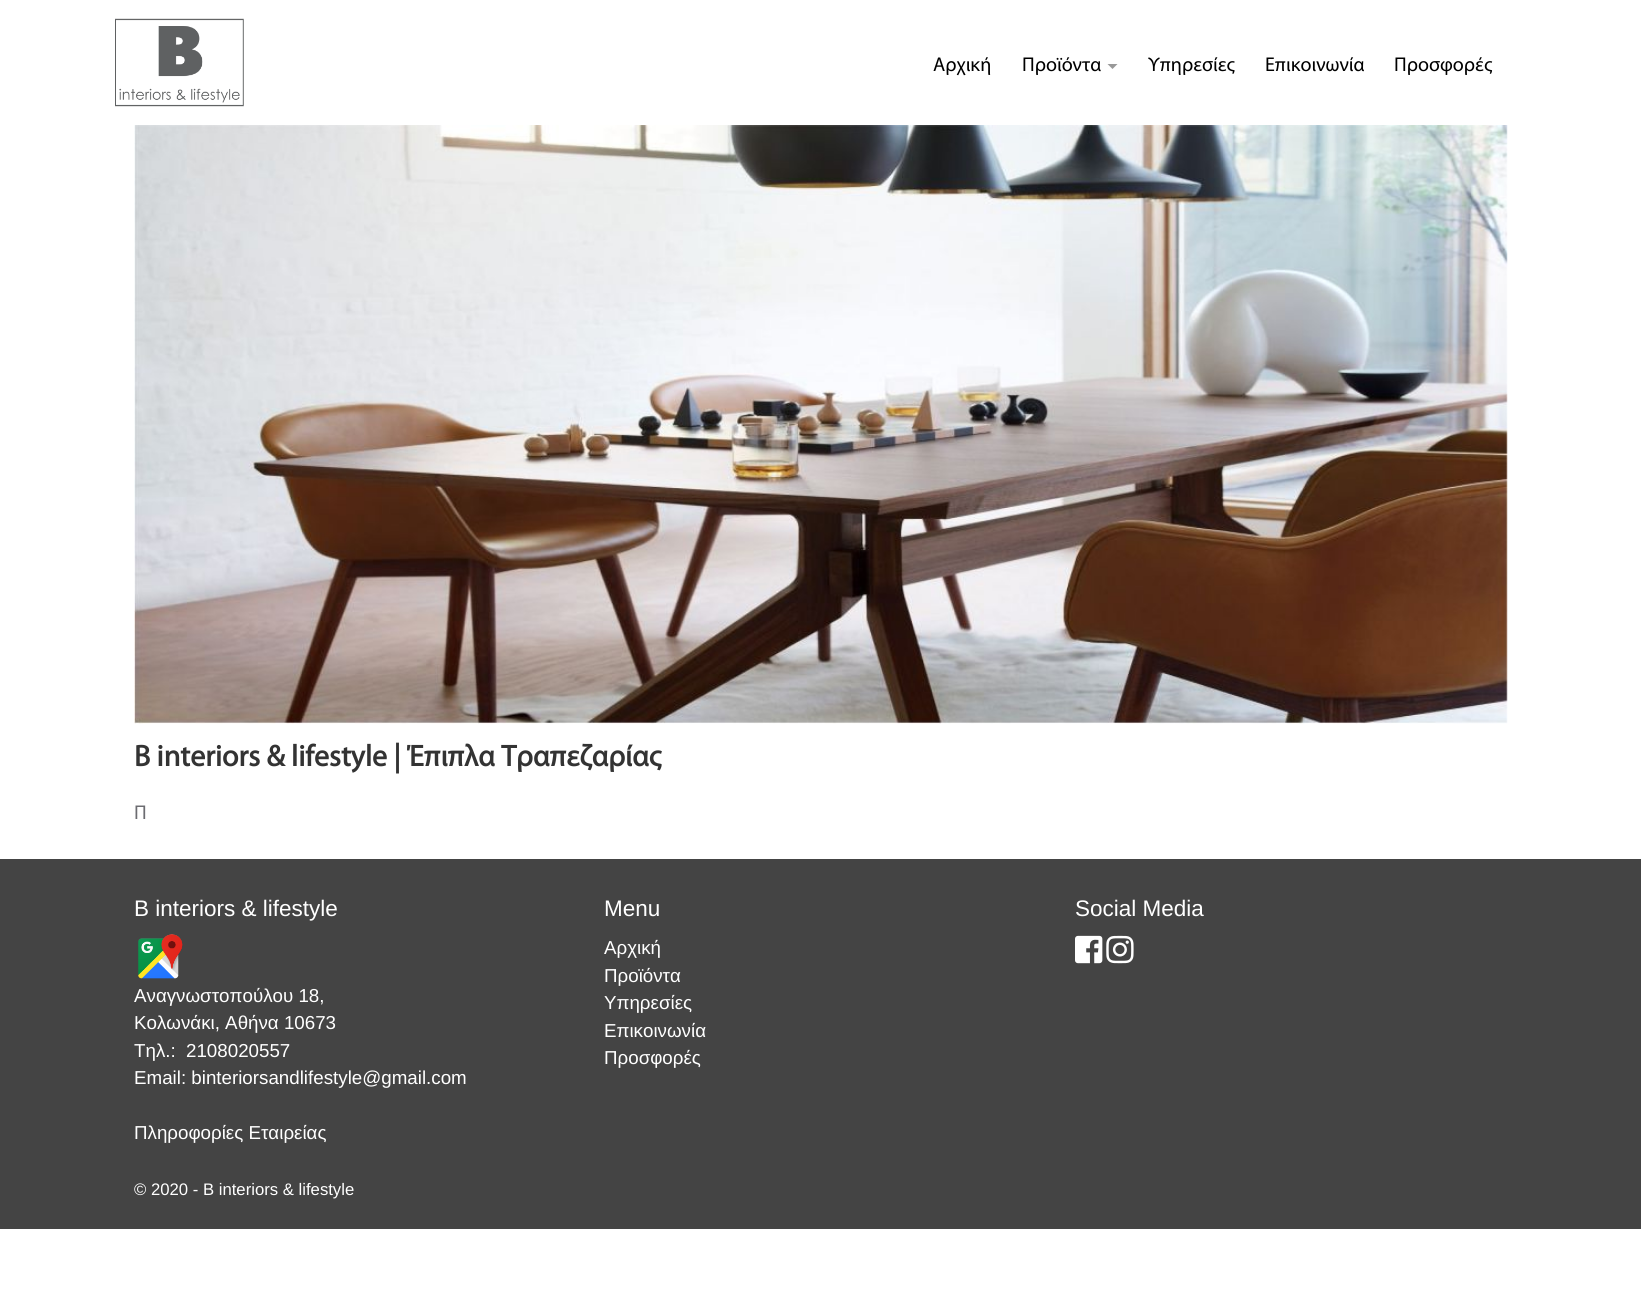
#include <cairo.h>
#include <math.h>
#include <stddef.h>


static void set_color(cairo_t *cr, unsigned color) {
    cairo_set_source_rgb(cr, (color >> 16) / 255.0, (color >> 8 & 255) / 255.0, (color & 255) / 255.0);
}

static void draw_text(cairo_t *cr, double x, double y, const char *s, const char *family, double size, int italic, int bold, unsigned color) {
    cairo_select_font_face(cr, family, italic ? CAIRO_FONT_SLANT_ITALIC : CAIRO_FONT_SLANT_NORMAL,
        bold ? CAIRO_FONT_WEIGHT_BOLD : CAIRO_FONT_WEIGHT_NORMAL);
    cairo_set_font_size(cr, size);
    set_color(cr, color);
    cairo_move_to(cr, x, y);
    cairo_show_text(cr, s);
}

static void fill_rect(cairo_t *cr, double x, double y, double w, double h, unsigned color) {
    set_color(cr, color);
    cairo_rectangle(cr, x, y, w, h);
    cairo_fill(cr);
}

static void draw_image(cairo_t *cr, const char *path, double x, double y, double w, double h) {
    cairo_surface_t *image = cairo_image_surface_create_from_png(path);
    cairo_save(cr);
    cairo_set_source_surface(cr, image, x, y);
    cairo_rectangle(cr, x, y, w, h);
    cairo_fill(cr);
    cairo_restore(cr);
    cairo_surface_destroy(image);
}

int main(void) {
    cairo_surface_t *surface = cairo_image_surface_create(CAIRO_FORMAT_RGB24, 1641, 1298);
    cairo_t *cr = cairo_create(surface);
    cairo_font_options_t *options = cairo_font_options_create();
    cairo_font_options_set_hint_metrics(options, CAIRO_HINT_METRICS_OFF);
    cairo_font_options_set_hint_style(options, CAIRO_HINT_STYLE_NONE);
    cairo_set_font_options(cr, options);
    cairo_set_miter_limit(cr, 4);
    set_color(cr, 0xFFFFFF);
    cairo_paint(cr);
    draw_image(cr, "assets/img1.png", 115, 18, 129, 89);
    draw_text(cr, 933, 71, "Αρχική", "Myriad", 20, 0, 0, 0x000000);
    draw_text(cr, 1022, 71, "Προϊόντα", "Myriad", 20, 0, 0, 0x000000);
    set_color(cr, 0x999999);
    cairo_new_path(cr);
    cairo_move_to(cr, 1107.5, 64);
    cairo_line_to(cr, 1117.5, 64);
    cairo_line_to(cr, 1112.5, 69);
    cairo_close_path(cr);
    cairo_fill(cr);
    draw_text(cr, 1148, 71, "Υπηρεσίες", "Myriad", 20, 0, 0, 0x000000);
    draw_text(cr, 1265, 71, "Επικοινωνία", "Myriad", 20, 0, 0, 0x000000);
    draw_text(cr, 1394, 71, "Προσφορές", "Myriad", 20, 0, 0, 0x000000);
    draw_image(cr, "assets/img2.png", 134, 125, 1374, 599);
    draw_text(cr, 134, 766, "B interiors & lifestyle | Έπιπλα Τραπεζαρίας", "Myriad", 30, 0, 1, 0x333333);
    draw_text(cr, 134, 819, "Π", "Myriad", 20, 0, 0, 0x6C6C71);
    fill_rect(cr, 0, 859, 1641, 370, 0x444444);
    draw_text(cr, 134, 916, "B interiors & lifestyle", "Liberation Sans", 22.5, 0, 0, 0xFFFFFF);
    draw_image(cr, "assets/img3.png", 138, 934, 45, 45);
    draw_text(cr, 134, 1002, "Αναγνωστοπούλου 18,", "Liberation Sans", 18.75, 0, 0, 0xFFFFFF);
    draw_text(cr, 134, 1029, "Κολωνάκι, Αθήνα 10673", "Liberation Sans", 18.75, 0, 0, 0xFFFFFF);
    draw_text(cr, 134, 1057, "Τηλ.:", "Liberation Sans", 18.75, 0, 0, 0xFFFFFF);
    draw_text(cr, 186, 1057, "2108020557", "Liberation Sans", 18.75, 0, 0, 0xFFFFFF);
    draw_text(cr, 134, 1084, "Email: binteriorsandlifestyle@gmail.com", "Liberation Sans", 18.75, 0, 0, 0xFFFFFF);
    draw_text(cr, 134, 1139, "Πληροφορίες Εταιρείας", "Liberation Sans", 18.75, 0, 0, 0xFFFFFF);
    draw_text(cr, 134, 1195, "© 2020 - B interiors & lifestyle", "Liberation Sans", 16.7, 0, 0, 0xFFFFFF);
    draw_text(cr, 604, 916, "Menu", "Liberation Sans", 22.5, 0, 0, 0xFFFFFF);
    draw_text(cr, 604, 954, "Αρχική", "Liberation Sans", 18.75, 0, 0, 0xFFFFFF);
    draw_text(cr, 604, 982, "Προϊόντα", "Liberation Sans", 18.75, 0, 0, 0xFFFFFF);
    draw_text(cr, 604, 1009, "Υπηρεσίες", "Liberation Sans", 18.75, 0, 0, 0xFFFFFF);
    draw_text(cr, 604, 1037, "Επικοινωνία", "Liberation Sans", 18.75, 0, 0, 0xFFFFFF);
    draw_text(cr, 604, 1064, "Προσφορές", "Liberation Sans", 18.75, 0, 0, 0xFFFFFF);
    draw_text(cr, 1075, 916, "Social Media", "Liberation Sans", 22.5, 0, 0, 0xFFFFFF);
    draw_image(cr, "assets/img4.png", 1075, 935, 28, 29);
    draw_image(cr, "assets/img5.png", 1106, 935, 28, 29);
    cairo_surface_write_to_png(surface, "output.png");
    cairo_font_options_destroy(options);
    cairo_destroy(cr);
    cairo_surface_destroy(surface);
    return 0;
}
